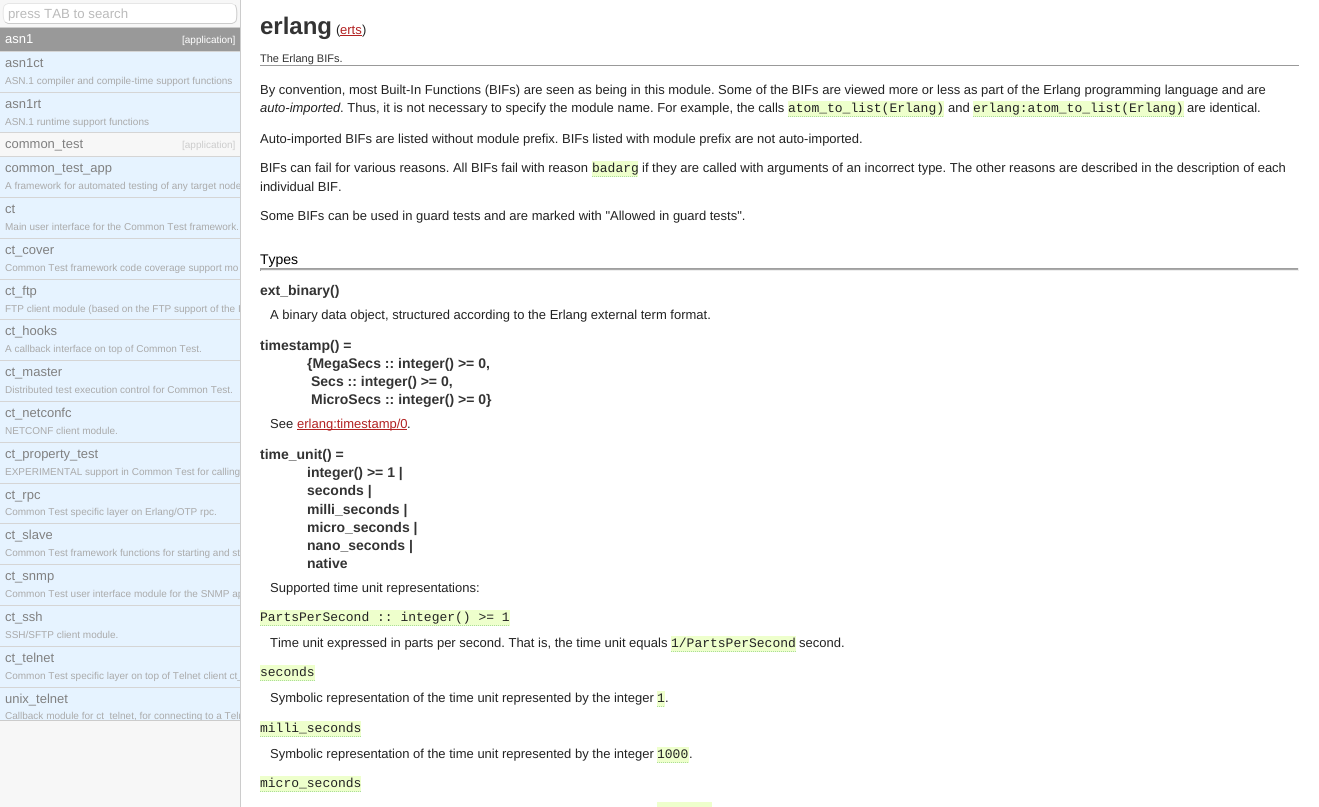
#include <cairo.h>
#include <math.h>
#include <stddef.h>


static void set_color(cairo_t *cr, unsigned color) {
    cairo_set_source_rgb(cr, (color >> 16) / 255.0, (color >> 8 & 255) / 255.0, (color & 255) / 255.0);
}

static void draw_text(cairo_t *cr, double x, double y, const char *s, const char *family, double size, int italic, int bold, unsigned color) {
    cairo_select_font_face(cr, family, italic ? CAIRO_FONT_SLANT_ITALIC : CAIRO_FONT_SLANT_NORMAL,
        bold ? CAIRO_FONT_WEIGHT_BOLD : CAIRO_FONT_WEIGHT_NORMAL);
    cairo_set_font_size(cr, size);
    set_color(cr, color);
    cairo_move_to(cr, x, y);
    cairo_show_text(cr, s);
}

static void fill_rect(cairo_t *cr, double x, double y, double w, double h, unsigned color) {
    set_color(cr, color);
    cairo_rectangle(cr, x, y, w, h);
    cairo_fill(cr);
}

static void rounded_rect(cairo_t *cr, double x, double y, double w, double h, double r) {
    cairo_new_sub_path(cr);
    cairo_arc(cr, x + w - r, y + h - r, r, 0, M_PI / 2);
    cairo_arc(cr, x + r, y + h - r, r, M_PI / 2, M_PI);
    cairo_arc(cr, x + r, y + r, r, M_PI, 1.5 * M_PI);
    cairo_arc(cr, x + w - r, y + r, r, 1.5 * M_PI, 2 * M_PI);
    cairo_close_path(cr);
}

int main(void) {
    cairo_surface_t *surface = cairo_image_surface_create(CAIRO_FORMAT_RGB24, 1319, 807);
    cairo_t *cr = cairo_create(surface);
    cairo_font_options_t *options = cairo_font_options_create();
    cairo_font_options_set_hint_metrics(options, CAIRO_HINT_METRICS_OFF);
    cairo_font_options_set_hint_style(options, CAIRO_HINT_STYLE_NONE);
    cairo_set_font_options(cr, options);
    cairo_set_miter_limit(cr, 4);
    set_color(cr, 0xFFFFFF);
    cairo_paint(cr);
    fill_rect(cr, 0, 0, 240, 807, 0xF7F7F7);
    fill_rect(cr, 240, 0, 1, 807, 0xCCCCCC);
    set_color(cr, 0xFFFFFF);
    rounded_rect(cr, 3, 3, 234, 21, 5);
    cairo_fill(cr);
    cairo_new_path(cr);
    cairo_move_to(cr, 235, 5);
    cairo_curve_to(cr, 237.5, 7, 237, 19, 236, 21);
    cairo_line_to(cr, 234.5, 22.5);
    cairo_line_to(cr, 232, 23.5);
    cairo_line_to(cr, 8, 23.5);
    cairo_line_to(cr, 5, 22);
    set_color(cr, 0xCCCCCC);
    cairo_set_line_width(cr, 1);
    cairo_stroke(cr);
    cairo_new_path(cr);
    cairo_move_to(cr, 5, 22);
    cairo_curve_to(cr, 2.5, 20, 3, 8, 4, 6);
    cairo_line_to(cr, 5.5, 4.5);
    cairo_line_to(cr, 8, 3.5);
    cairo_line_to(cr, 232, 3.5);
    cairo_line_to(cr, 235, 5);
    set_color(cr, 0xE6E6E6);
    cairo_stroke(cr);
    draw_text(cr, 8, 18, "press TAB to search", "Liberation Sans", 13.25, 0, 0, 0xBABABA);
    fill_rect(cr, 0, 27, 240, 1, 0xCCCCCC);
    fill_rect(cr, 0, 720, 240, 1, 0xCCCCCC);
    fill_rect(cr, 0, 28, 240, 23, 0x999999);
    fill_rect(cr, 0, 51, 240, 1, 0xD5D5D5);
    draw_text(cr, 5, 43, "asn1", "Liberation Sans", 13, 0, 0, 0xFFFFFF);
    draw_text(cr, 182, 43, "[application]", "Liberation Sans", 10, 0, 0, 0xFFFFFF);
    fill_rect(cr, 0, 52, 240, 40, 0xE6F3FF);
    fill_rect(cr, 0, 92, 240, 1, 0xD5D5D5);
    draw_text(cr, 5, 67, "asn1ct", "Liberation Sans", 13, 0, 0, 0x808080);
    draw_text(cr, 5, 84, "ASN.1 compiler and compile-time support functions", "Liberation Sans", 10, 0, 0, 0xAAAAAA);
    fill_rect(cr, 0, 93, 240, 39, 0xE6F3FF);
    fill_rect(cr, 0, 132, 240, 1, 0xD5D5D5);
    draw_text(cr, 5, 108, "asn1rt", "Liberation Sans", 13, 0, 0, 0x808080);
    draw_text(cr, 5, 125, "ASN.1 runtime support functions", "Liberation Sans", 10, 0, 0, 0xAAAAAA);
    fill_rect(cr, 0, 156, 240, 1, 0xD5D5D5);
    draw_text(cr, 5, 148, "common_test", "Liberation Sans", 13, 0, 0, 0x808080);
    draw_text(cr, 182, 148, "[application]", "Liberation Sans", 10, 0, 0, 0xCCCCCC);
    fill_rect(cr, 0, 157, 240, 40, 0xE6F3FF);
    fill_rect(cr, 0, 197, 240, 1, 0xD5D5D5);
    draw_text(cr, 5, 172, "common_test_app", "Liberation Sans", 13, 0, 0, 0x808080);
    cairo_save(cr);
    cairo_rectangle(cr, 0, 157, 240, 40);
    cairo_clip(cr);
    draw_text(cr, 5, 189, "A framework for automated testing of any target node", "Liberation Sans", 10, 0, 0, 0xAAAAAA);
    cairo_restore(cr);
    fill_rect(cr, 0, 198, 240, 40, 0xE6F3FF);
    fill_rect(cr, 0, 238, 240, 1, 0xD5D5D5);
    draw_text(cr, 5, 213, "ct", "Liberation Sans", 13, 0, 0, 0x808080);
    draw_text(cr, 5, 230, "Main user interface for the Common Test framework.", "Liberation Sans", 10, 0, 0, 0xAAAAAA);
    fill_rect(cr, 0, 239, 240, 40, 0xE6F3FF);
    fill_rect(cr, 0, 279, 240, 1, 0xD5D5D5);
    draw_text(cr, 5, 254, "ct_cover", "Liberation Sans", 13, 0, 0, 0x808080);
    draw_text(cr, 5, 271, "Common Test framework code coverage support mo", "Liberation Sans", 10, 0, 0, 0xAAAAAA);
    fill_rect(cr, 0, 280, 240, 39, 0xE6F3FF);
    fill_rect(cr, 0, 319, 240, 1, 0xD5D5D5);
    draw_text(cr, 5, 295, "ct_ftp", "Liberation Sans", 13, 0, 0, 0x808080);
    draw_text(cr, 5, 312, "FTP client module (based on the FTP support of the I", "Liberation Sans", 10, 0, 0, 0xAAAAAA);
    fill_rect(cr, 0, 320, 240, 40, 0xE6F3FF);
    fill_rect(cr, 0, 360, 240, 1, 0xD5D5D5);
    draw_text(cr, 5, 335, "ct_hooks", "Liberation Sans", 13, 0, 0, 0x808080);
    draw_text(cr, 5, 352, "A callback interface on top of Common Test.", "Liberation Sans", 10, 0, 0, 0xAAAAAA);
    fill_rect(cr, 0, 361, 240, 40, 0xE6F3FF);
    fill_rect(cr, 0, 401, 240, 1, 0xD5D5D5);
    draw_text(cr, 5, 376, "ct_master", "Liberation Sans", 13, 0, 0, 0x808080);
    draw_text(cr, 5, 393, "Distributed test execution control for Common Test.", "Liberation Sans", 10, 0, 0, 0xAAAAAA);
    fill_rect(cr, 0, 402, 240, 40, 0xE6F3FF);
    fill_rect(cr, 0, 442, 240, 1, 0xD5D5D5);
    draw_text(cr, 5, 417, "ct_netconfc", "Liberation Sans", 13, 0, 0, 0x808080);
    draw_text(cr, 5, 434, "NETCONF client module.", "Liberation Sans", 10, 0, 0, 0xAAAAAA);
    fill_rect(cr, 0, 443, 240, 40, 0xE6F3FF);
    fill_rect(cr, 0, 483, 240, 1, 0xD5D5D5);
    draw_text(cr, 5, 458, "ct_property_test", "Liberation Sans", 13, 0, 0, 0x808080);
    draw_text(cr, 5, 475, "EXPERIMENTAL support in Common Test for calling", "Liberation Sans", 10, 0, 0, 0xAAAAAA);
    fill_rect(cr, 0, 484, 240, 39, 0xE6F3FF);
    fill_rect(cr, 0, 523, 240, 1, 0xD5D5D5);
    draw_text(cr, 5, 499, "ct_rpc", "Liberation Sans", 13, 0, 0, 0x808080);
    draw_text(cr, 5, 515, "Common Test specific layer on Erlang/OTP rpc.", "Liberation Sans", 10, 0, 0, 0xAAAAAA);
    fill_rect(cr, 0, 524, 240, 40, 0xE6F3FF);
    fill_rect(cr, 0, 564, 240, 1, 0xD5D5D5);
    draw_text(cr, 5, 539, "ct_slave", "Liberation Sans", 13, 0, 0, 0x808080);
    draw_text(cr, 5, 556, "Common Test framework functions for starting and st", "Liberation Sans", 10, 0, 0, 0xAAAAAA);
    fill_rect(cr, 0, 565, 240, 40, 0xE6F3FF);
    fill_rect(cr, 0, 605, 240, 1, 0xD5D5D5);
    draw_text(cr, 5, 580, "ct_snmp", "Liberation Sans", 13, 0, 0, 0x808080);
    cairo_save(cr);
    cairo_rectangle(cr, 0, 565, 240, 40);
    cairo_clip(cr);
    draw_text(cr, 5, 597, "Common Test user interface module for the SNMP ap", "Liberation Sans", 10, 0, 0, 0xAAAAAA);
    cairo_restore(cr);
    fill_rect(cr, 0, 606, 240, 40, 0xE6F3FF);
    fill_rect(cr, 0, 646, 240, 1, 0xD5D5D5);
    draw_text(cr, 5, 621, "ct_ssh", "Liberation Sans", 13, 0, 0, 0x808080);
    draw_text(cr, 5, 638, "SSH/SFTP client module.", "Liberation Sans", 10, 0, 0, 0xAAAAAA);
    fill_rect(cr, 0, 647, 240, 40, 0xE6F3FF);
    fill_rect(cr, 0, 687, 240, 1, 0xD5D5D5);
    draw_text(cr, 5, 662, "ct_telnet", "Liberation Sans", 13, 0, 0, 0x808080);
    cairo_save(cr);
    cairo_rectangle(cr, 0, 647, 240, 40);
    cairo_clip(cr);
    draw_text(cr, 5, 679, "Common Test specific layer on top of Telnet client ct_", "Liberation Sans", 10, 0, 0, 0xAAAAAA);
    cairo_restore(cr);
    fill_rect(cr, 0, 688, 240, 32, 0xE6F3FF);
    draw_text(cr, 5, 703, "unix_telnet", "Liberation Sans", 13, 0, 0, 0x808080);
    cairo_save(cr);
    cairo_rectangle(cr, 0, 688, 240, 32);
    cairo_clip(cr);
    draw_text(cr, 5, 719, "Callback module for ct_telnet, for connecting to a Teln", "Liberation Sans", 10, 0, 0, 0xAAAAAA);
    cairo_restore(cr);
    draw_text(cr, 260, 34, "erlang", "Liberation Sans", 24, 0, 1, 0x333333);
    draw_text(cr, 336, 34, "(", "Liberation Sans", 13, 0, 0, 0x222222);
    draw_text(cr, 340, 34, "erts", "Liberation Sans", 13, 0, 0, 0xB22222);
    fill_rect(cr, 340, 35, 22, 1, 0xB22222);
    draw_text(cr, 362, 34, ")", "Liberation Sans", 13, 0, 0, 0x222222);
    fill_rect(cr, 260, 65, 1039, 1, 0x999999);
    draw_text(cr, 260, 62, "The Erlang BIFs.", "Liberation Sans", 11, 0, 0, 0x333333);
    draw_text(cr, 260, 94, "By convention, most Built-In Functions (BIFs) are seen as being in this module. Some of the BIFs are viewed more or less as part of the Erlang programming language and are", "Liberation Sans", 13, 0, 0, 0x222222);
    draw_text(cr, 260, 112, "auto-imported", "Liberation Sans", 13, 1, 0, 0x222222);
    draw_text(cr, 340, 112, ". Thus, it is not necessary to specify the module name. For example, the calls", "Liberation Sans", 13, 0, 0, 0x222222);
    fill_rect(cr, 788, 101, 156, 16, 0xEEFFCC);
    draw_text(cr, 788, 112, "atom_to_list(Erlang)", "Liberation Mono", 13, 0, 0, 0x222222);
    cairo_new_path(cr);
    cairo_move_to(cr, 788, 116.5);
    cairo_line_to(cr, 944, 116.5);
    set_color(cr, 0xAADD99);
    cairo_set_dash(cr, (double[]){1, 1}, 2, 0);
    cairo_stroke(cr);
    draw_text(cr, 948, 112, "and", "Liberation Sans", 13, 0, 0, 0x222222);
    fill_rect(cr, 973, 101, 211, 16, 0xEEFFCC);
    draw_text(cr, 973, 112, "erlang:atom_to_list(Erlang)", "Liberation Mono", 13, 0, 0, 0x222222);
    cairo_new_path(cr);
    cairo_move_to(cr, 973, 116.5);
    cairo_line_to(cr, 1184, 116.5);
    set_color(cr, 0xAADD99);
    cairo_stroke(cr);
    draw_text(cr, 1187, 112, "are identical.", "Liberation Sans", 13, 0, 0, 0x222222);
    draw_text(cr, 260, 143, "Auto-imported BIFs are listed without module prefix. BIFs listed with module prefix are not auto-imported.", "Liberation Sans", 13, 0, 0, 0x222222);
    draw_text(cr, 260, 172, "BIFs can fail for various reasons. All BIFs fail with reason", "Liberation Sans", 13, 0, 0, 0x222222);
    fill_rect(cr, 592, 161, 46, 16, 0xEEFFCC);
    draw_text(cr, 592, 172, "badarg", "Liberation Mono", 13, 0, 0, 0x222222);
    cairo_new_path(cr);
    cairo_move_to(cr, 592, 176.5);
    cairo_line_to(cr, 638, 176.5);
    set_color(cr, 0xAADD99);
    cairo_stroke(cr);
    draw_text(cr, 642, 172, "if they are called with arguments of an incorrect type. The other reasons are described in the description of each", "Liberation Sans", 13, 0, 0, 0x222222);
    draw_text(cr, 260, 191, "individual BIF.", "Liberation Sans", 13, 0, 0, 0x222222);
    draw_text(cr, 260, 220, "Some BIFs can be used in guard tests and are marked with \"Allowed in guard tests\".", "Liberation Sans", 13, 0, 0, 0x222222);
    draw_text(cr, 260, 264, "Types", "Liberation Sans", 14, 0, 0, 0x000000);
    fill_rect(cr, 260, 269, 1039, 1, 0xAAAAAA);
    fill_rect(cr, 260, 268, 1039, 1, 0x9F9F9F);
    fill_rect(cr, 1298, 268, 1, 3, 0xEEEEEE);
    fill_rect(cr, 260, 270, 1039, 1, 0xEEEEEE);
    fill_rect(cr, 260, 268, 1, 3, 0x9F9F9F);
    draw_text(cr, 260, 295, "ext_binary()", "Liberation Sans", 14, 0, 1, 0x333333);
    draw_text(cr, 270, 319, "A binary data object, structured according to the Erlang external term format.", "Liberation Sans", 13, 0, 0, 0x222222);
    draw_text(cr, 260, 350, "timestamp() =", "Liberation Sans", 14, 0, 1, 0x333333);
    draw_text(cr, 307, 368, "{MegaSecs :: integer() >= 0,", "Liberation Sans", 14, 0, 1, 0x333333);
    draw_text(cr, 311, 386, "Secs :: integer() >= 0,", "Liberation Sans", 14, 0, 1, 0x333333);
    draw_text(cr, 311, 404, "MicroSecs :: integer() >= 0}", "Liberation Sans", 14, 0, 1, 0x333333);
    draw_text(cr, 270, 428, "See", "Liberation Sans", 13, 0, 0, 0x222222);
    fill_rect(cr, 297, 429, 110, 1, 0xB22222);
    draw_text(cr, 297, 428, "erlang:timestamp/0", "Liberation Sans", 13, 0, 0, 0xB22222);
    draw_text(cr, 407, 428, ".", "Liberation Sans", 13, 0, 0, 0x222222);
    draw_text(cr, 260, 459, "time_unit() =", "Liberation Sans", 14, 0, 1, 0x333333);
    draw_text(cr, 307, 477, "integer() >= 1 |", "Liberation Sans", 14, 0, 1, 0x333333);
    draw_text(cr, 307, 495, "seconds |", "Liberation Sans", 14, 0, 1, 0x333333);
    draw_text(cr, 307, 514, "milli_seconds |", "Liberation Sans", 14, 0, 1, 0x333333);
    draw_text(cr, 307, 532, "micro_seconds |", "Liberation Sans", 14, 0, 1, 0x333333);
    draw_text(cr, 307, 550, "nano_seconds |", "Liberation Sans", 14, 0, 1, 0x333333);
    draw_text(cr, 307, 568, "native", "Liberation Sans", 14, 0, 1, 0x333333);
    draw_text(cr, 270, 592, "Supported time unit representations:", "Liberation Sans", 13, 0, 0, 0x222222);
    fill_rect(cr, 260, 610, 250, 16, 0xEEFFCC);
    draw_text(cr, 260, 621, "PartsPerSecond :: integer() >= 1", "Liberation Mono", 13, 0, 0, 0x222222);
    cairo_new_path(cr);
    cairo_move_to(cr, 260, 625.5);
    cairo_line_to(cr, 510, 625.5);
    set_color(cr, 0xAADD99);
    cairo_stroke(cr);
    draw_text(cr, 270, 647, "Time unit expressed in parts per second. That is, the time unit equals", "Liberation Sans", 13, 0, 0, 0x222222);
    fill_rect(cr, 671, 636, 125, 16, 0xEEFFCC);
    draw_text(cr, 671, 647, "1/PartsPerSecond", "Liberation Mono", 13, 0, 0, 0x222222);
    cairo_new_path(cr);
    cairo_move_to(cr, 671, 651.5);
    cairo_line_to(cr, 796, 651.5);
    set_color(cr, 0xAADD99);
    cairo_stroke(cr);
    draw_text(cr, 799, 647, "second.", "Liberation Sans", 13, 0, 0, 0x222222);
    fill_rect(cr, 260, 665, 55, 16, 0xEEFFCC);
    draw_text(cr, 260, 676, "seconds", "Liberation Mono", 13, 0, 0, 0x222222);
    cairo_new_path(cr);
    cairo_move_to(cr, 260, 680.5);
    cairo_line_to(cr, 315, 680.5);
    set_color(cr, 0xAADD99);
    cairo_stroke(cr);
    draw_text(cr, 270, 702, "Symbolic representation of the time unit represented by the integer", "Liberation Sans", 13, 0, 0, 0x222222);
    fill_rect(cr, 657, 691, 8, 16, 0xEEFFCC);
    draw_text(cr, 657, 702, "1", "Liberation Mono", 13, 0, 0, 0x222222);
    cairo_new_path(cr);
    cairo_move_to(cr, 657, 706.5);
    cairo_line_to(cr, 665, 706.5);
    set_color(cr, 0xAADD99);
    cairo_stroke(cr);
    draw_text(cr, 665, 702, ".", "Liberation Sans", 13, 0, 0, 0x222222);
    fill_rect(cr, 260, 721, 101, 16, 0xEEFFCC);
    draw_text(cr, 260, 732, "milli_seconds", "Liberation Mono", 13, 0, 0, 0x222222);
    cairo_new_path(cr);
    cairo_move_to(cr, 260, 736.5);
    cairo_line_to(cr, 361, 736.5);
    set_color(cr, 0xAADD99);
    cairo_stroke(cr);
    draw_text(cr, 270, 758, "Symbolic representation of the time unit represented by the integer", "Liberation Sans", 13, 0, 0, 0x222222);
    fill_rect(cr, 657, 747, 32, 16, 0xEEFFCC);
    draw_text(cr, 657, 758, "1000", "Liberation Mono", 13, 0, 0, 0x222222);
    cairo_new_path(cr);
    cairo_move_to(cr, 657, 762.5);
    cairo_line_to(cr, 689, 762.5);
    set_color(cr, 0xAADD99);
    cairo_stroke(cr);
    draw_text(cr, 689, 758, ".", "Liberation Sans", 13, 0, 0, 0x222222);
    fill_rect(cr, 260, 776, 101, 16, 0xEEFFCC);
    draw_text(cr, 260, 787, "micro_seconds", "Liberation Mono", 13, 0, 0, 0x222222);
    cairo_new_path(cr);
    cairo_move_to(cr, 260, 791.5);
    cairo_line_to(cr, 361, 791.5);
    set_color(cr, 0xAADD99);
    cairo_stroke(cr);
    fill_rect(cr, 657, 802, 55, 5, 0xEEFFCC);
    cairo_surface_write_to_png(surface, "output.png");
    cairo_font_options_destroy(options);
    cairo_destroy(cr);
    cairo_surface_destroy(surface);
    return 0;
}
